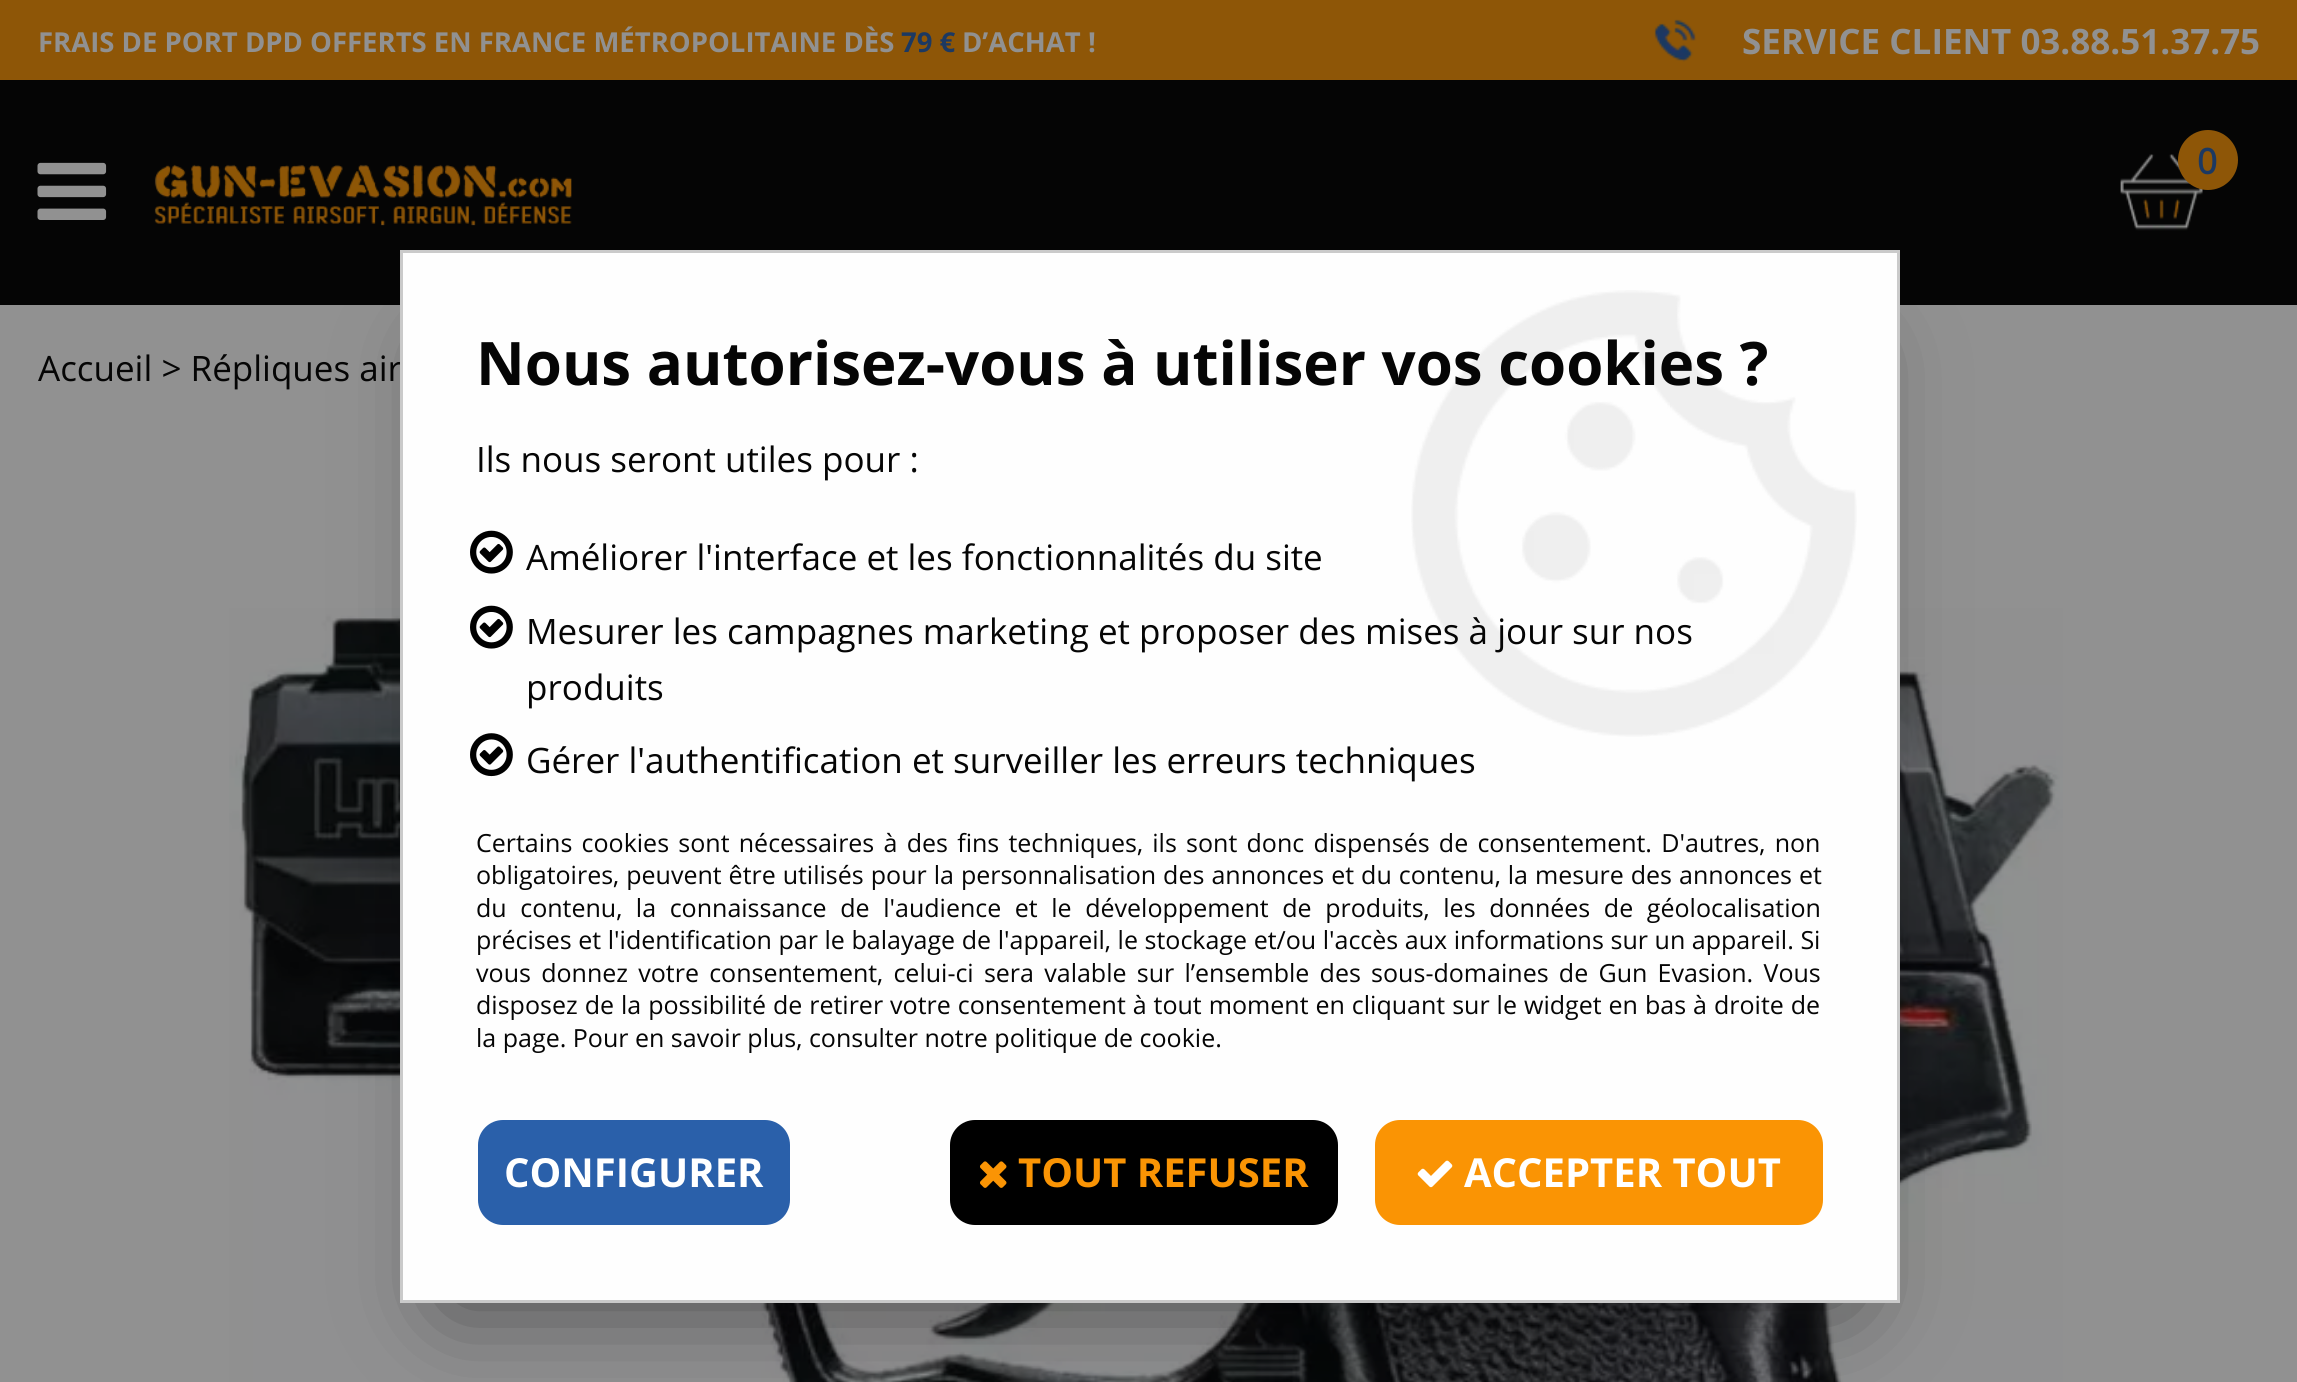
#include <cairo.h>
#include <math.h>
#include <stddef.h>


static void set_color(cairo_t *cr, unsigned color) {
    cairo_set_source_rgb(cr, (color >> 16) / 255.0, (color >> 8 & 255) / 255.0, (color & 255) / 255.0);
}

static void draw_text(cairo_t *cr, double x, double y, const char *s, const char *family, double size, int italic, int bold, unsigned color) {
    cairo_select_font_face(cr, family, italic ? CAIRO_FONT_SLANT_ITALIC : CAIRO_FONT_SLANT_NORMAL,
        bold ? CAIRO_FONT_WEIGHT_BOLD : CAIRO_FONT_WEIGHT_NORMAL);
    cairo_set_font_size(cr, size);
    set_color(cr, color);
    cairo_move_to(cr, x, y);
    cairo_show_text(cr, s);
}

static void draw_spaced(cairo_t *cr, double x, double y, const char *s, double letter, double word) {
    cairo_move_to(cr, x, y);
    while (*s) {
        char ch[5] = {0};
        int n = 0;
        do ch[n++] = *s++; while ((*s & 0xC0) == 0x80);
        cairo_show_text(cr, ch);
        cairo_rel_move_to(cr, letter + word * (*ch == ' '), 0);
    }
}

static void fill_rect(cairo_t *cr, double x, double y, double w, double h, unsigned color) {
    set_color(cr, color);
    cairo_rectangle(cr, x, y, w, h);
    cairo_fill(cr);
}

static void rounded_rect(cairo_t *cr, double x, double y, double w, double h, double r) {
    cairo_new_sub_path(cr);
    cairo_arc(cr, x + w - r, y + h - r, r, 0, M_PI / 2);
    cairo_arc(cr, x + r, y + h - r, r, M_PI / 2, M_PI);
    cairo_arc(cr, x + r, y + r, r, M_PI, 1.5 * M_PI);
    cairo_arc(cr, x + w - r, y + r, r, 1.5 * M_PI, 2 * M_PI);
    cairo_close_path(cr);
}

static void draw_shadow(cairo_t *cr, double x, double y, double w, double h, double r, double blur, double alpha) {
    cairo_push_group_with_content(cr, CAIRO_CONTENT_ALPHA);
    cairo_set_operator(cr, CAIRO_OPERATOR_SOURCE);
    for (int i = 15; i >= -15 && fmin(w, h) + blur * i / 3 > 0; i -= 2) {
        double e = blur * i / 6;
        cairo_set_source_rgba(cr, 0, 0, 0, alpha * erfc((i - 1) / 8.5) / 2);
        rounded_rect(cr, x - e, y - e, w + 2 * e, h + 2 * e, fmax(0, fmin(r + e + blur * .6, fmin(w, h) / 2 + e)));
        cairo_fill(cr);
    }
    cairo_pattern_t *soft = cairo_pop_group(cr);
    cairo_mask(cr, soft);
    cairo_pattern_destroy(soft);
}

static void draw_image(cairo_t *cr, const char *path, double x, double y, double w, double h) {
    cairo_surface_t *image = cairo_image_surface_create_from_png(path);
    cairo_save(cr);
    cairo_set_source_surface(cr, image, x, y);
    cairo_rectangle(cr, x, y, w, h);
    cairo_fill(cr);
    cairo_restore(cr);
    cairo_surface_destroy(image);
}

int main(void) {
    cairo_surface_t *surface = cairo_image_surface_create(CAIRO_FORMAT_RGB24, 2297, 1382);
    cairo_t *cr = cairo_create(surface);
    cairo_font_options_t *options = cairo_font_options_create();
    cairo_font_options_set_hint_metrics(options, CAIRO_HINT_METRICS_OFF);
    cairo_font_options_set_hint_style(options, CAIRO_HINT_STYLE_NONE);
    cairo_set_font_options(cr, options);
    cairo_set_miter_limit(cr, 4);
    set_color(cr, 0x919191);
    cairo_paint(cr);
    fill_rect(cr, 0, 0, 2297, 80, 0x8E5607);
    draw_text(cr, 38, 52, "FRAIS DE PORT DPD OFFERTS EN FRANCE MÉTROPOLITAINE DÈS", "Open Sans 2", 27.5, 0, 1, 0x919191);
    draw_text(cr, 901, 52, "79 €", "Open Sans 2", 27.5, 0, 1, 0x1C3962);
    draw_text(cr, 962, 52, "D’ACHAT !", "Open Sans 2", 27.5, 0, 1, 0x919191);
    draw_image(cr, "assets/img1.png", 1654, 19, 43, 43);
    draw_text(cr, 1742, 54, "SERVICE CLIENT 03.88.51.37.75", "Open Sans 2", 35, 0, 1, 0x919191);
    fill_rect(cr, 0, 80, 2297, 225, 0x050505);
    draw_image(cr, "assets/img2.png", 37, 162, 70, 58);
    draw_image(cr, "assets/img3.png", 154, 164, 418, 62);
    draw_image(cr, "assets/img4.png", 2120, 154, 83, 77);
    set_color(cr, 0x8E5607);
    cairo_arc(cr, 2208, 160, 30, 0, 2 * M_PI);
    cairo_fill(cr);
    draw_text(cr, 2197, 174, "0", "Open Sans", 35, 0, 1, 0x1C3962);
    draw_text(cr, 38, 381, "Accueil > Répliques air", "Open Sans", 35, 0, 0, 0x050505);
    draw_image(cr, "assets/img5.png", 229, 608, 1834, 774);
    set_color(cr, 0x000000);
    draw_shadow(cr, 450, 350, 1400, 953, 0, 50, 0.5);
    fill_rect(cr, 403, 253, 1494, 1047, 0xFEFEFE);
    draw_image(cr, "assets/img6.png", 1411, 290, 446, 447);
    cairo_rectangle(cr, 401.5, 251.5, 1497, 1050);
    set_color(cr, 0xCACACA);
    cairo_set_line_width(cr, 3);
    cairo_stroke(cr);
    draw_text(cr, 476, 385, "Nous autorisez-vous à utiliser vos cookies ?", "Open Sans 2", 60, 0, 1, 0x050505);
    draw_text(cr, 476, 472, "Ils nous seront utiles pour :", "Open Sans", 35, 0, 0, 0x050505);
    draw_image(cr, "assets/img7.png", 470, 530, 43, 44);
    draw_text(cr, 526, 570, "Améliorer l'interface et les fonctionnalités du site", "Open Sans", 35, 0, 0, 0x050505);
    draw_image(cr, "assets/img7.png", 470, 605, 43, 44);
    draw_text(cr, 526, 644, "Mesurer les campagnes marketing et proposer des mises à jour sur nos", "Open Sans", 35, 0, 0, 0x050505);
    draw_text(cr, 526, 700, "produits", "Open Sans", 35, 0, 0, 0x050505);
    draw_image(cr, "assets/img8.png", 470, 733, 43, 44);
    draw_text(cr, 526, 773, "Gérer l'authentification et surveiller les erreurs techniques", "Open Sans", 35, 0, 0, 0x050505);
    cairo_set_font_size(cr, 25);
    draw_spaced(cr, 476, 852, "Certains cookies sont nécessaires à des fins techniques, ils sont donc dispensés de consentement. D'autres, non", 0, 2.75);
    draw_spaced(cr, 476, 884, "obligatoires, peuvent être utilisés pour la personnalisation des annonces et du contenu, la mesure des annonces et", 0, 0.5);
    draw_spaced(cr, 476, 917, "du contenu, la connaissance de l'audience et le développement de produits, les données de géolocalisation", 0, 7.1);
    draw_spaced(cr, 476, 949, "précises et l'identification par le balayage de l'appareil, le stockage et/ou l'accès aux informations sur un appareil. Si", 0, 0.1);
    draw_spaced(cr, 476, 982, "vous donnez votre consentement, celui-ci sera valable sur l’ensemble des sous-domaines de Gun Evasion. Vous", 0, 3.75);
    draw_spaced(cr, 476, 1014, "disposez de la possibilité de retirer votre consentement à tout moment en cliquant sur le widget en bas à droite de", 0, 0.5);
    draw_text(cr, 476, 1047, "la page. Pour en savoir plus, consulter notre politique de cookie.", "Open Sans", 25, 0, 0, 0x050505);
    set_color(cr, 0x2A60AA);
    rounded_rect(cr, 479.5, 1121.5, 309, 102, 23.5);
    cairo_fill_preserve(cr);
    cairo_stroke(cr);
    draw_text(cr, 504, 1187, "CONFIGURER", "Open Sans 2", 40, 0, 1, 0xFFFFFF);
    set_color(cr, 0x000000);
    rounded_rect(cr, 951.5, 1121.5, 385, 102, 23.5);
    cairo_fill_preserve(cr);
    cairo_stroke(cr);
    draw_image(cr, "assets/img9.png", 980, 1161, 27, 27);
    draw_text(cr, 1018, 1187, "TOUT REFUSER", "Open Sans 2", 40, 0, 1, 0xFA9404);
    rounded_rect(cr, 1376.5, 1121.5, 445, 102, 23.5);
    cairo_fill_preserve(cr);
    cairo_stroke(cr);
    draw_image(cr, "assets/img10.png", 1417, 1160, 36, 28);
    draw_text(cr, 1464, 1187, "ACCEPTER TOUT", "Open Sans 2", 40, 0, 1, 0xFFFFFF);
    cairo_surface_write_to_png(surface, "output.png");
    cairo_font_options_destroy(options);
    cairo_destroy(cr);
    cairo_surface_destroy(surface);
    return 0;
}
